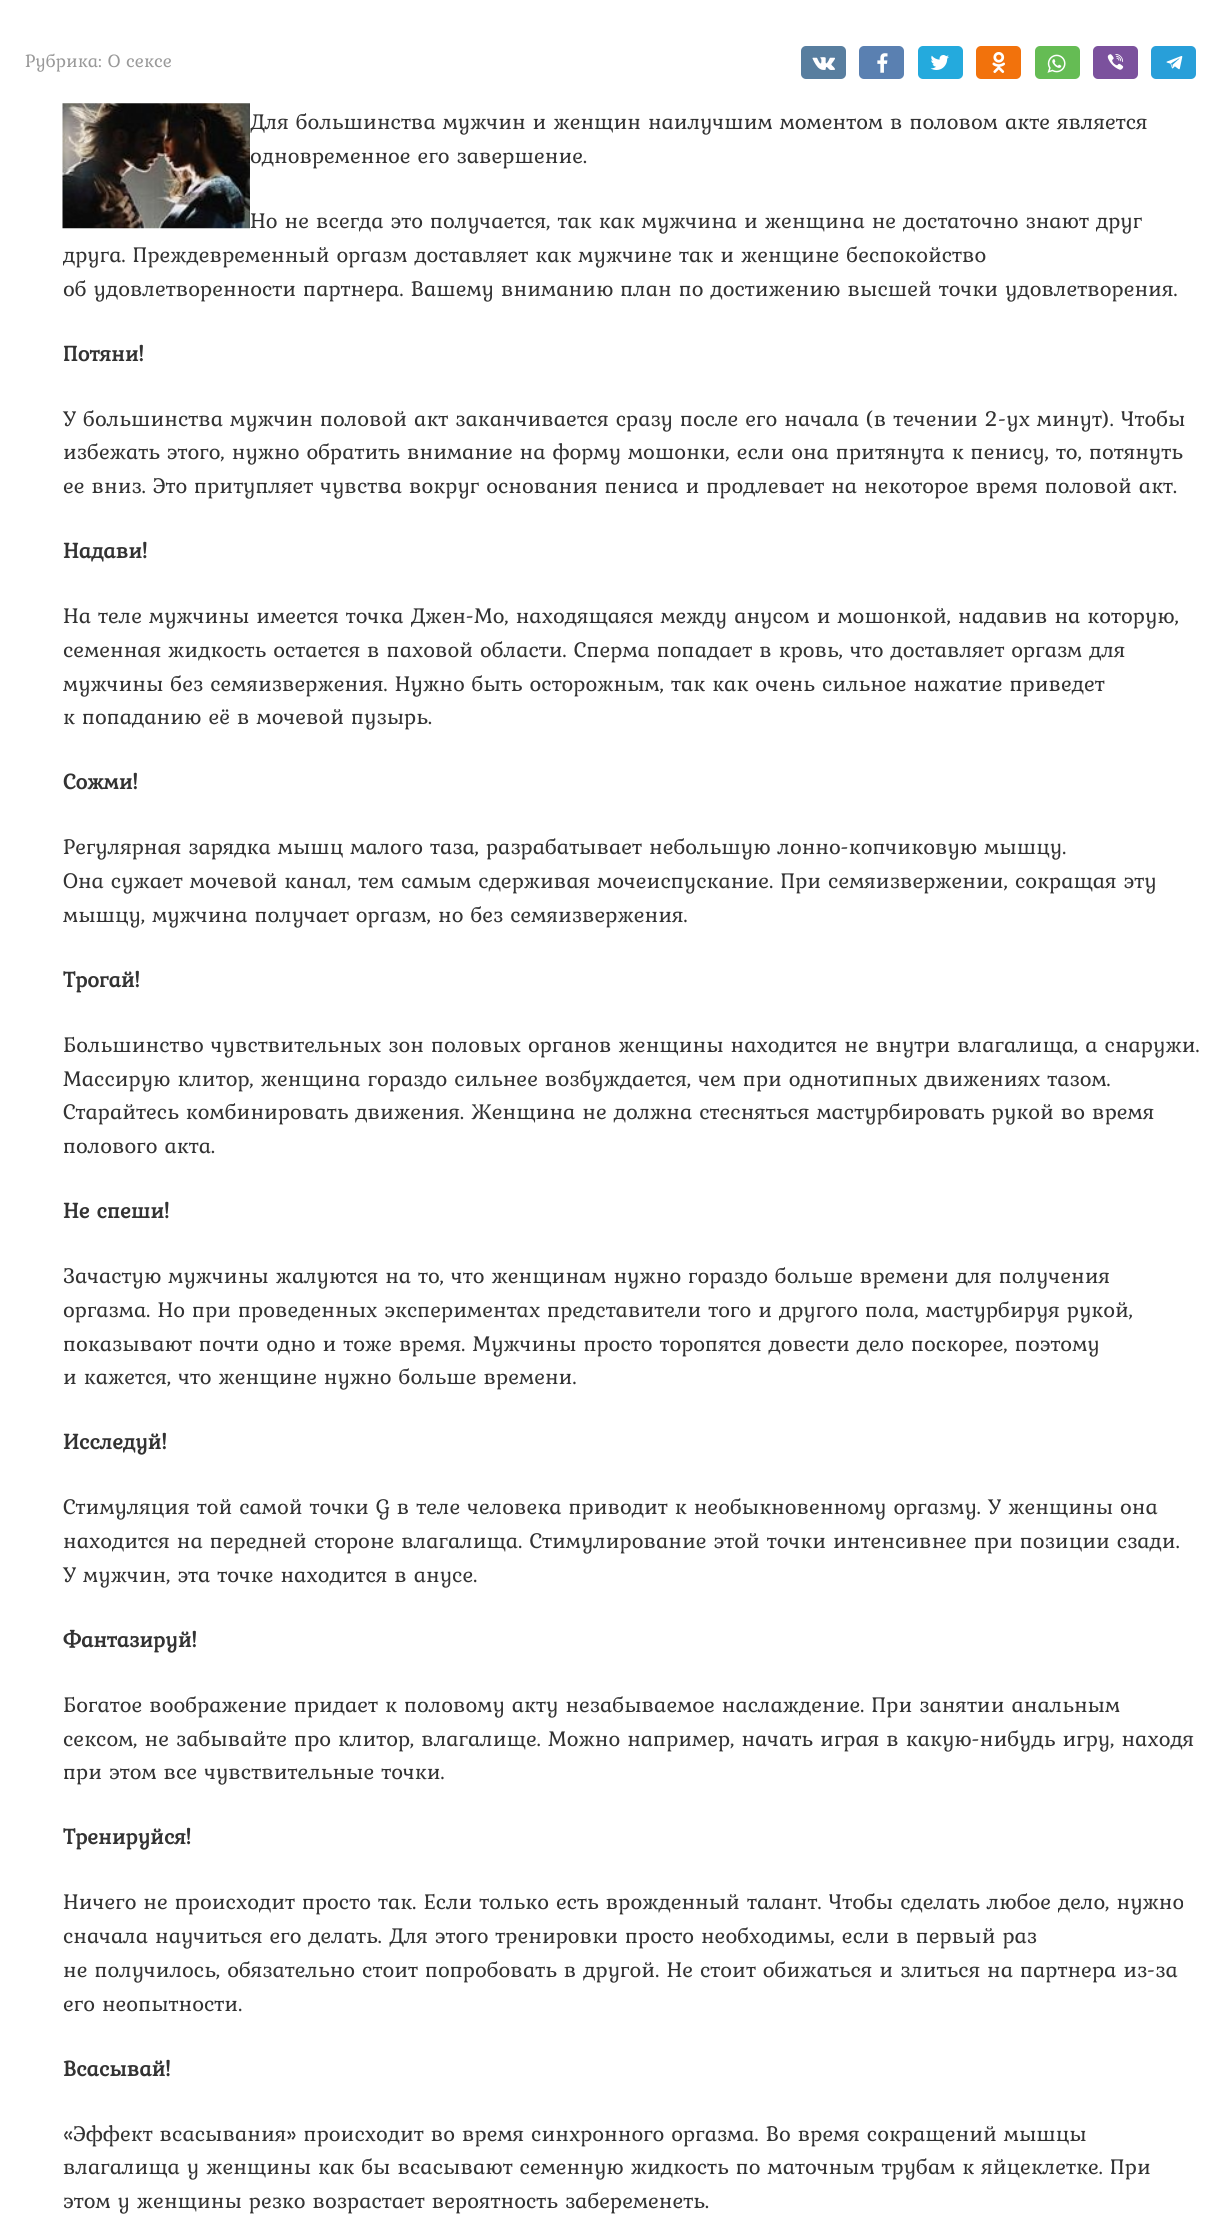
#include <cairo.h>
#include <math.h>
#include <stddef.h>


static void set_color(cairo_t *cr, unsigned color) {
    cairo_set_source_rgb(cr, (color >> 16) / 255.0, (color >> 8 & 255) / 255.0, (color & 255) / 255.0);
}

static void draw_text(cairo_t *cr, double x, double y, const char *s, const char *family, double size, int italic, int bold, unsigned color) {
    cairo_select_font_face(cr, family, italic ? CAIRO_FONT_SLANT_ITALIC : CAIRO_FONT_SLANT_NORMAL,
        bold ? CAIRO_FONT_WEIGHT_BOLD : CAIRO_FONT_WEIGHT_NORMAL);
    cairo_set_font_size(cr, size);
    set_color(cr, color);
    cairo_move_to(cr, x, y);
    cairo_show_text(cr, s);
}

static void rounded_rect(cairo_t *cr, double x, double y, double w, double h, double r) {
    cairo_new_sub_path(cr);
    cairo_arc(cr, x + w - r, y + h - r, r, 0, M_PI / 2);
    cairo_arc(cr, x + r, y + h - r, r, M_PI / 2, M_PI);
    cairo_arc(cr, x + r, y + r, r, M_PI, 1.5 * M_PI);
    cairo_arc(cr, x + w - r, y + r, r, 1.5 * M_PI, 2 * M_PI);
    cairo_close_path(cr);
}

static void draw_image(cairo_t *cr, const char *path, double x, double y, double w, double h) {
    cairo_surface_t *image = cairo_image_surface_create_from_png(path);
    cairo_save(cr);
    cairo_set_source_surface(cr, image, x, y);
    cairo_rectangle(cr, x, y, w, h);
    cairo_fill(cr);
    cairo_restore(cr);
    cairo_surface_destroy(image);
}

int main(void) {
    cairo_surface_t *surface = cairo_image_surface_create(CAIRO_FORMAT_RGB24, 1224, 2214);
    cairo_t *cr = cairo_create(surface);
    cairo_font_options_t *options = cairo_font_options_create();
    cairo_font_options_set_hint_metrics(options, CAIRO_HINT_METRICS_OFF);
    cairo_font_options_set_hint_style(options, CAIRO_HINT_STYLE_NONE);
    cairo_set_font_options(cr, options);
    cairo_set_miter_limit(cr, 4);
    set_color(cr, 0xFFFFFF);
    cairo_paint(cr);
    draw_text(cr, 25, 67, "Рубрика: О сексе", "Kurale", 19, 0, 0, 0x999999);
    set_color(cr, 0x587E9F);
    rounded_rect(cr, 801, 46, 45, 33, 5);
    cairo_fill(cr);
    draw_image(cr, "assets/img1.png", 812, 57, 23, 13);
    set_color(cr, 0x5A80B1);
    rounded_rect(cr, 859, 46, 45, 33, 5);
    cairo_fill(cr);
    draw_image(cr, "assets/img2.png", 877, 53, 11, 20);
    set_color(cr, 0x24AADD);
    rounded_rect(cr, 918, 46, 45, 33, 5);
    cairo_fill(cr);
    draw_image(cr, "assets/img3.png", 930, 55, 19, 15);
    set_color(cr, 0xF2720C);
    rounded_rect(cr, 976, 46, 45, 33, 5);
    cairo_fill(cr);
    draw_image(cr, "assets/img4.png", 992, 52, 13, 21);
    set_color(cr, 0x65BC54);
    rounded_rect(cr, 1035, 46, 45, 33, 5);
    cairo_fill(cr);
    draw_image(cr, "assets/img5.png", 1047, 54, 19, 19);
    set_color(cr, 0x7B519D);
    rounded_rect(cr, 1093, 46, 45, 33, 5);
    cairo_fill(cr);
    draw_image(cr, "assets/img6.png", 1107, 54, 17, 16);
    set_color(cr, 0x289FD9);
    rounded_rect(cr, 1151, 46, 45, 33, 5);
    cairo_fill(cr);
    draw_image(cr, "assets/img7.png", 1166, 56, 17, 14);
    draw_image(cr, "assets/img8.png", 62, 103, 188, 126);
    draw_text(cr, 250, 129, "Для большинства мужчин и женщин наилучшим моментом в половом акте является", "Kurale", 22.5, 0, 0, 0x333333);
    draw_text(cr, 250, 163, "одновременное его завершение.", "Kurale", 22.5, 0, 0, 0x333333);
    draw_text(cr, 250, 228, "Но не всегда это получается, так как мужчина и женщина не достаточно знают друг", "Kurale", 22.5, 0, 0, 0x333333);
    draw_text(cr, 63, 262, "друга. Преждевременный оргазм доставляет как мужчине так и женщине беспокойство", "Kurale", 22.5, 0, 0, 0x333333);
    draw_text(cr, 63, 296, "об удовлетворенности партнера. Вашему вниманию план по достижению высшей точки удовлетворения.", "Kurale", 22.5, 0, 0, 0x333333);
    draw_text(cr, 63, 361, "Потяни!", "Kurale", 22.5, 0, 1, 0x333333);
    draw_text(cr, 63, 426, "У большинства мужчин половой акт заканчивается сразу после его начала (в течении 2-ух минут). Чтобы", "Kurale", 22.5, 0, 0, 0x333333);
    draw_text(cr, 63, 459, "избежать этого, нужно обратить внимание на форму мошонки, если она притянута к пенису, то, потянуть", "Kurale", 22.5, 0, 0, 0x333333);
    draw_text(cr, 63, 493, "ее вниз. Это притупляет чувства вокруг основания пениса и продлевает на некоторое время половой акт.", "Kurale", 22.5, 0, 0, 0x333333);
    draw_text(cr, 63, 558, "Надави!", "Kurale", 22.5, 0, 1, 0x333333);
    draw_text(cr, 63, 623, "На теле мужчины имеется точка Джен-Мо, находящаяся между анусом и мошонкой, надавив на которую,", "Kurale", 22.5, 0, 0, 0x333333);
    draw_text(cr, 63, 657, "семенная жидкость остается в паховой области. Сперма попадает в кровь, что доставляет оргазм для", "Kurale", 22.5, 0, 0, 0x333333);
    draw_text(cr, 63, 691, "мужчины без семяизвержения. Нужно быть осторожным, так как очень сильное нажатие приведет", "Kurale", 22.5, 0, 0, 0x333333);
    draw_text(cr, 63, 724, "к попаданию её в мочевой пузырь.", "Kurale", 22.5, 0, 0, 0x333333);
    draw_text(cr, 63, 789, "Сожми!", "Kurale", 22.5, 0, 1, 0x333333);
    draw_text(cr, 63, 854, "Регулярная зарядка мышц малого таза, разрабатывает небольшую лонно-копчиковую мышцу.", "Kurale", 22.5, 0, 0, 0x333333);
    draw_text(cr, 63, 888, "Она сужает мочевой канал, тем самым сдерживая мочеиспускание. При семяизвержении, сокращая эту", "Kurale", 22.5, 0, 0, 0x333333);
    draw_text(cr, 63, 922, "мышцу, мужчина получает оргазм, но без семяизвержения.", "Kurale", 22.5, 0, 0, 0x333333);
    draw_text(cr, 63, 987, "Трогай!", "Kurale", 22.5, 0, 1, 0x333333);
    draw_text(cr, 63, 1052, "Большинство чувствительных зон половых органов женщины находится не внутри влагалища, а снаружи.", "Kurale", 22.5, 0, 0, 0x333333);
    draw_text(cr, 63, 1086, "Массирую клитор, женщина гораздо сильнее возбуждается, чем при однотипных движениях тазом.", "Kurale", 22.5, 0, 0, 0x333333);
    draw_text(cr, 63, 1119, "Старайтесь комбинировать движения. Женщина не должна стесняться мастурбировать рукой во время", "Kurale", 22.5, 0, 0, 0x333333);
    draw_text(cr, 63, 1153, "полового акта.", "Kurale", 22.5, 0, 0, 0x333333);
    draw_text(cr, 63, 1218, "Не спеши!", "Kurale", 22.5, 0, 1, 0x333333);
    draw_text(cr, 63, 1283, "Зачастую мужчины жалуются на то, что женщинам нужно гораздо больше времени для получения", "Kurale", 22.5, 0, 0, 0x333333);
    draw_text(cr, 63, 1317, "оргазма. Но при проведенных экспериментах представители того и другого пола, мастурбируя рукой,", "Kurale", 22.5, 0, 0, 0x333333);
    draw_text(cr, 63, 1351, "показывают почти одно и тоже время. Мужчины просто торопятся довести дело поскорее, поэтому", "Kurale", 22.5, 0, 0, 0x333333);
    draw_text(cr, 63, 1384, "и кажется, что женщине нужно больше времени.", "Kurale", 22.5, 0, 0, 0x333333);
    draw_text(cr, 63, 1449, "Исследуй!", "Kurale", 22.5, 0, 1, 0x333333);
    draw_text(cr, 63, 1514, "Стимуляция той самой точки G в теле человека приводит к необыкновенному оргазму. У женщины она", "Kurale", 22.5, 0, 0, 0x333333);
    draw_text(cr, 63, 1548, "находится на передней стороне влагалища. Стимулирование этой точки интенсивнее при позиции сзади.", "Kurale", 22.5, 0, 0, 0x333333);
    draw_text(cr, 63, 1582, "У мужчин, эта точке находится в анусе.", "Kurale", 22.5, 0, 0, 0x333333);
    draw_text(cr, 63, 1647, "Фантазируй!", "Kurale", 22.5, 0, 1, 0x333333);
    draw_text(cr, 63, 1712, "Богатое воображение придает к половому акту незабываемое наслаждение. При занятии анальным", "Kurale", 22.5, 0, 0, 0x333333);
    draw_text(cr, 63, 1746, "сексом, не забывайте про клитор, влагалище. Можно например, начать играя в какую-нибудь игру, находя", "Kurale", 22.5, 0, 0, 0x333333);
    draw_text(cr, 63, 1779, "при этом все чувствительные точки.", "Kurale", 22.5, 0, 0, 0x333333);
    draw_text(cr, 63, 1844, "Тренируйся!", "Kurale", 22.5, 0, 1, 0x333333);
    draw_text(cr, 63, 1909, "Ничего не происходит просто так. Если только есть врожденный талант. Чтобы сделать любое дело, нужно", "Kurale", 22.5, 0, 0, 0x333333);
    draw_text(cr, 63, 1943, "сначала научиться его делать. Для этого тренировки просто необходимы, если в первый раз", "Kurale", 22.5, 0, 0, 0x333333);
    draw_text(cr, 63, 1977, "не получилось, обязательно стоит попробовать в другой. Не стоит обижаться и злиться на партнера из-за", "Kurale", 22.5, 0, 0, 0x333333);
    draw_text(cr, 63, 2011, "его неопытности.", "Kurale", 22.5, 0, 0, 0x333333);
    draw_text(cr, 63, 2076, "Всасывай!", "Kurale", 22.5, 0, 1, 0x333333);
    draw_text(cr, 63, 2141, "«Эффект всасывания» происходит во время синхронного оргазма. Во время сокращений мышцы", "Kurale", 22.5, 0, 0, 0x333333);
    draw_text(cr, 63, 2174, "влагалища у женщины как бы всасывают семенную жидкость по маточным трубам к яйцеклетке. При", "Kurale", 22.5, 0, 0, 0x333333);
    draw_text(cr, 63, 2208, "этом у женщины резко возрастает вероятность забеременеть.", "Kurale", 22.5, 0, 0, 0x333333);
    cairo_surface_write_to_png(surface, "output.png");
    cairo_font_options_destroy(options);
    cairo_destroy(cr);
    cairo_surface_destroy(surface);
    return 0;
}
